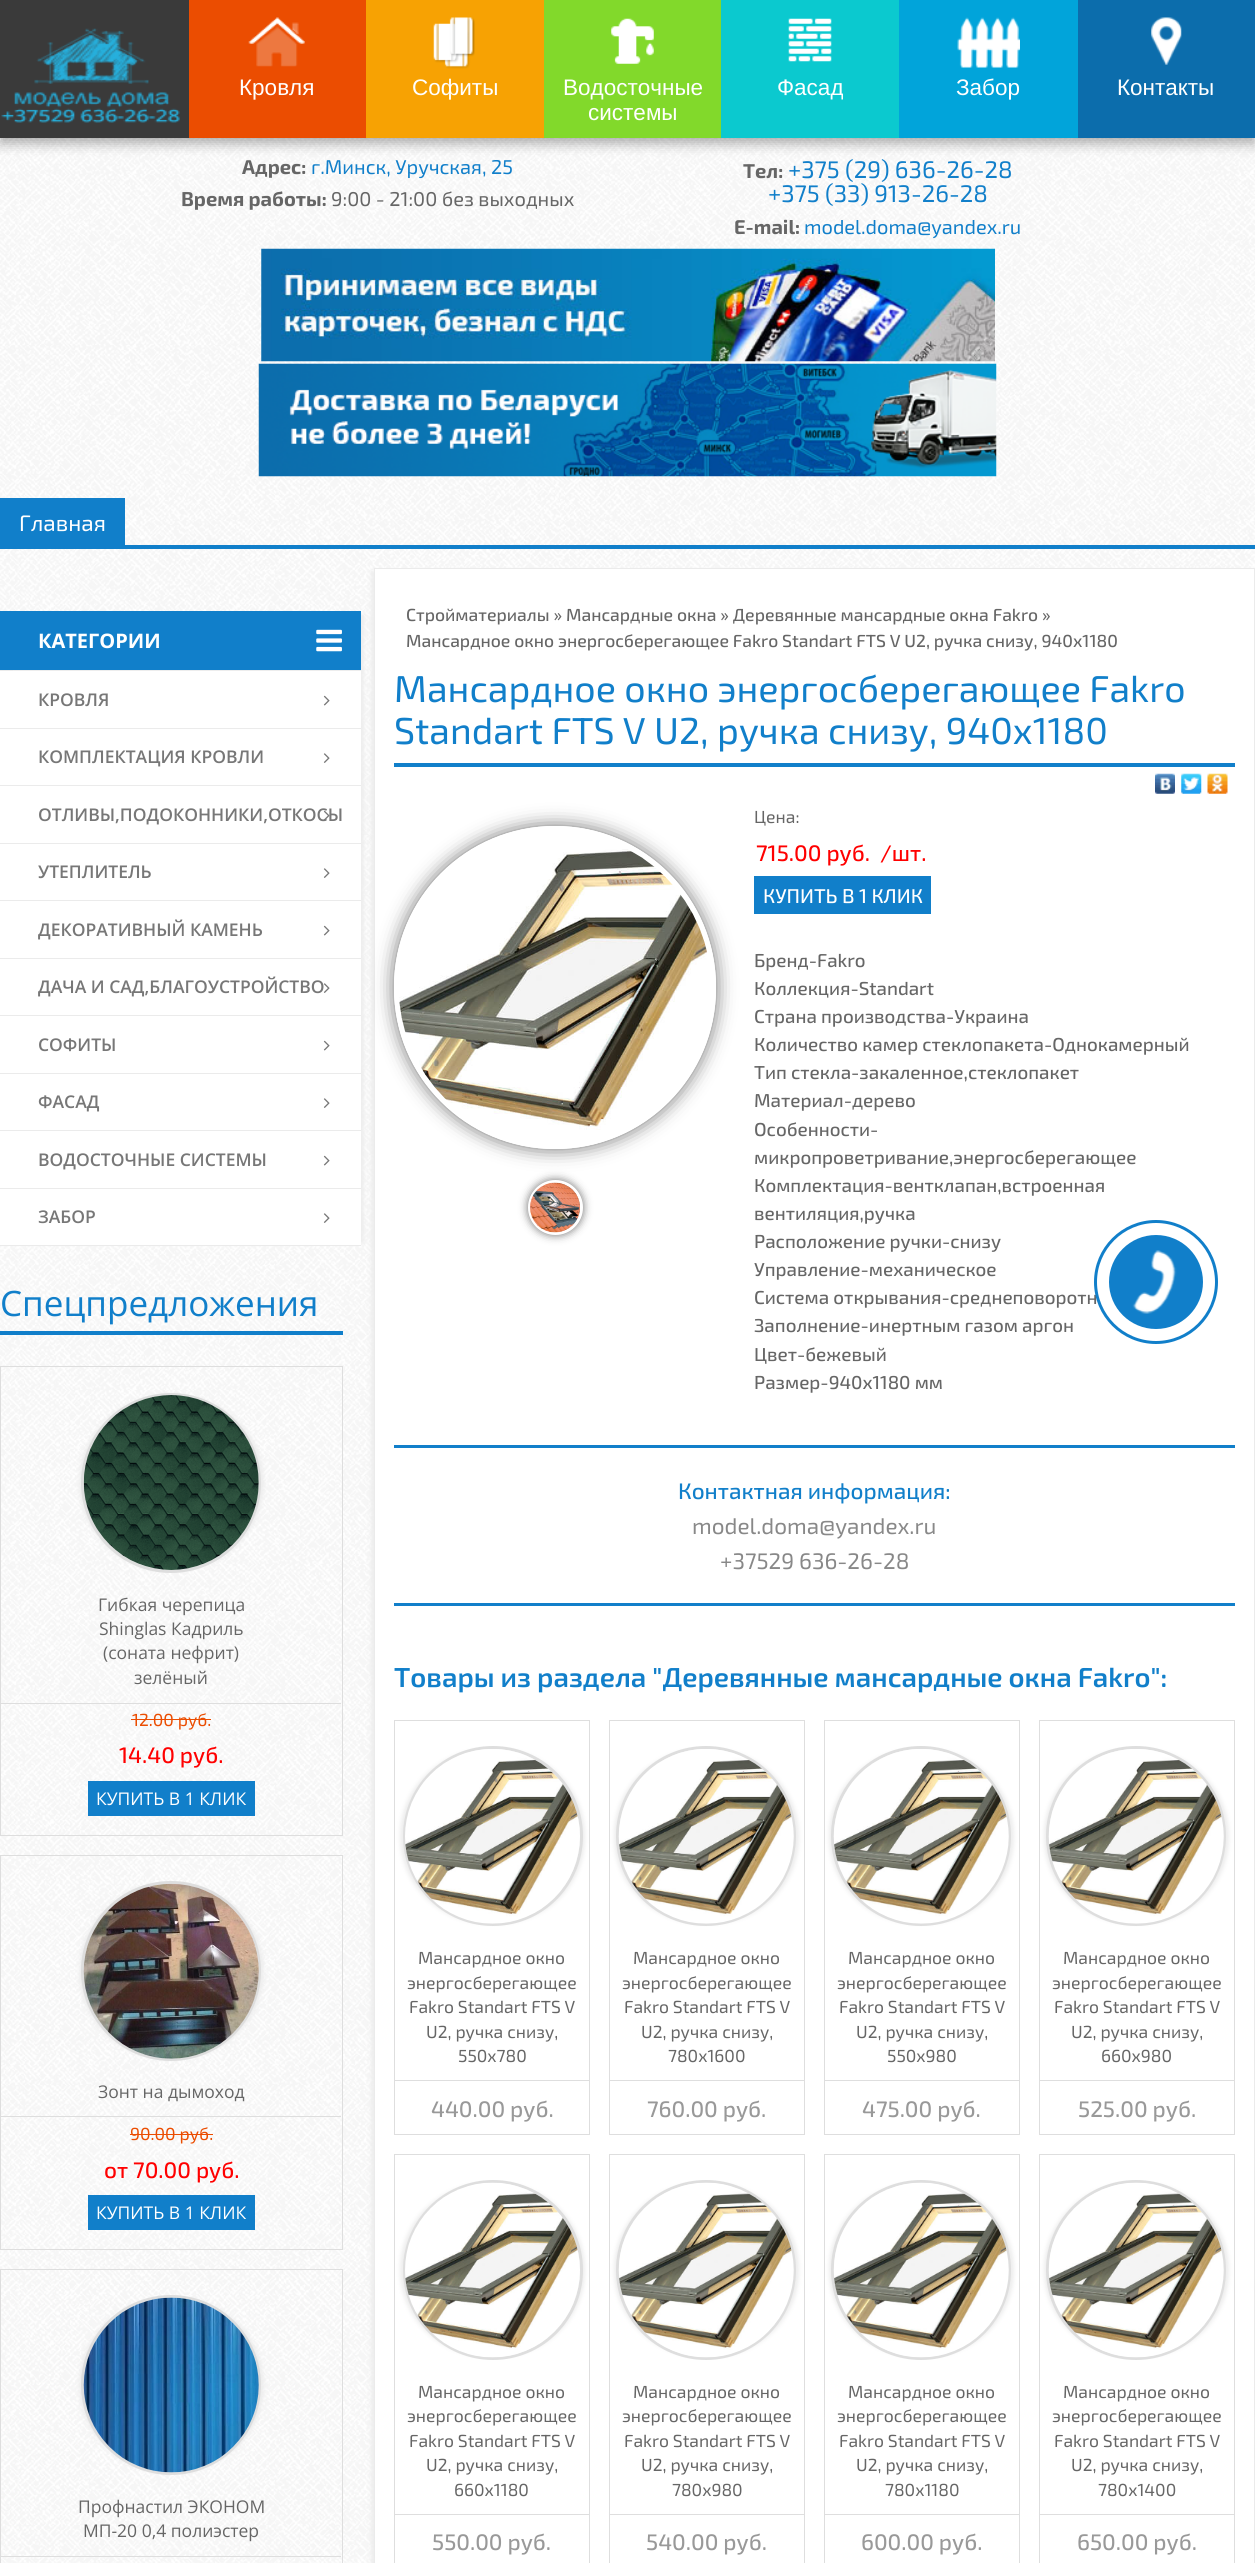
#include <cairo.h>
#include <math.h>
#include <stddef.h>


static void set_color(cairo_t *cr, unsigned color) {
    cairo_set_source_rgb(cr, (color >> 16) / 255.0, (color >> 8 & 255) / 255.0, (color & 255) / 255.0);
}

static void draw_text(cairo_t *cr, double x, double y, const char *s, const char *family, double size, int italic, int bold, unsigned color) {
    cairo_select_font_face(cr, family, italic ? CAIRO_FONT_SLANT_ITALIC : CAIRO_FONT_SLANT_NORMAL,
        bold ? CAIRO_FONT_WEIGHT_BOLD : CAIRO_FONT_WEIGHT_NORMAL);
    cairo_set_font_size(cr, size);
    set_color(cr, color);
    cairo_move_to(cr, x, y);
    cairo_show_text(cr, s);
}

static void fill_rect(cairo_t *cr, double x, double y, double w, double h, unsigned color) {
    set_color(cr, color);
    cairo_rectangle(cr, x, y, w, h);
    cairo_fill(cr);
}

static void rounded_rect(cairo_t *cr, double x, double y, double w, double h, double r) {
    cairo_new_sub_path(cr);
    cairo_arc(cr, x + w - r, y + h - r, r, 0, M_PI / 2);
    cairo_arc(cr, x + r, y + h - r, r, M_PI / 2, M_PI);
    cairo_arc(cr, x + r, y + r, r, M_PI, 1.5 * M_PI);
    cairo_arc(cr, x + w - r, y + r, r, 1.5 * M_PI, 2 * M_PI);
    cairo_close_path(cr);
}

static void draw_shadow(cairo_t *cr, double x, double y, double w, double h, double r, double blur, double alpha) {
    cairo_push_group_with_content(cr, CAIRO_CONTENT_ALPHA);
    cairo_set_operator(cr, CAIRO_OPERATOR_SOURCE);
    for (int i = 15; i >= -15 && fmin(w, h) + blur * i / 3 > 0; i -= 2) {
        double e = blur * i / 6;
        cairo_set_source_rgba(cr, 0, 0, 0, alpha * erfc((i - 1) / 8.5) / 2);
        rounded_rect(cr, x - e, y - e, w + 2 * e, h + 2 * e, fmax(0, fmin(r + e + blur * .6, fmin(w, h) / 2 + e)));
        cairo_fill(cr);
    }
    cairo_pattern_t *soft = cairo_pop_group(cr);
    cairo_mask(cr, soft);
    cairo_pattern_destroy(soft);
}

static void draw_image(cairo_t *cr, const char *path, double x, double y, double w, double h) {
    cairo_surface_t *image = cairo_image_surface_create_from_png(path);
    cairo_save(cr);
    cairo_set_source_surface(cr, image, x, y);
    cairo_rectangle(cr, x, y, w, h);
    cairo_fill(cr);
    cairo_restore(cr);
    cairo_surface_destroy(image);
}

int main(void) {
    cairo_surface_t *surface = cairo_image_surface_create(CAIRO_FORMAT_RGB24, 1255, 2563);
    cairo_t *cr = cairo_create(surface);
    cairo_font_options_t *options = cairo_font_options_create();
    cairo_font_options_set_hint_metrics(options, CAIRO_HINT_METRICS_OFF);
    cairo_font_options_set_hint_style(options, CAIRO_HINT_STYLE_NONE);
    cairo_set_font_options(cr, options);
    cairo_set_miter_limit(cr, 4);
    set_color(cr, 0xFFFFFF);
    cairo_paint(cr);
    draw_image(cr, "assets/img1.png", 0, 138, 1255, 2425);
    set_color(cr, 0x000000);
    draw_shadow(cr, 0, 6, 1255, 138, 0, 6, 0.3);
    fill_rect(cr, 0, 0, 189, 138, 0x3A3A3A);
    fill_rect(cr, 1078, 0, 177, 138, 0x0C6DAC);
    draw_image(cr, "assets/img2.png", 1, 28, 179, 95);
    fill_rect(cr, 189, 0, 177, 138, 0xEB4D01);
    draw_image(cr, "assets/img3.png", 248, 17, 57, 50);
    draw_text(cr, 239, 95, "Кровля", "Liberation Sans", 22.5, 0, 0, 0xFFFFFF);
    fill_rect(cr, 366, 0, 178, 138, 0xF7A203);
    draw_image(cr, "assets/img4.png", 433, 17, 42, 52);
    draw_text(cr, 412, 95, "Софиты", "Liberation Sans", 22.5, 0, 0, 0xFFFFFF);
    fill_rect(cr, 544, 0, 177, 138, 0x82D92B);
    draw_image(cr, "assets/img5.png", 611, 18, 43, 46);
    draw_text(cr, 563, 95, "Водосточные", "Liberation Sans", 22.5, 0, 0, 0xFFFFFF);
    draw_text(cr, 588, 120, "системы", "Liberation Sans", 22.5, 0, 0, 0xFFFFFF);
    fill_rect(cr, 721, 0, 178, 138, 0x0BC9CF);
    draw_image(cr, "assets/img6.png", 788, 18, 44, 44);
    draw_text(cr, 777, 95, "Фасад", "Liberation Sans", 22.5, 0, 0, 0xFFFFFF);
    fill_rect(cr, 899, 0, 179, 138, 0x01A4DA);
    draw_image(cr, "assets/img7.png", 957, 17, 63, 51);
    draw_text(cr, 956, 95, "Забор", "Liberation Sans", 22.5, 0, 0, 0xFFFFFF);
    draw_image(cr, "assets/img8.png", 1151, 17, 31, 48);
    draw_text(cr, 1117, 95, "Контакты", "Liberation Sans", 22.5, 0, 0, 0xFFFFFF);
    draw_text(cr, 242, 174, "Адрес:", "Exo 2", 20, 0, 1, 0x666666);
    draw_text(cr, 311, 174, "г.Минск, Уручская, 25", "Exo 2", 20, 0, 0, 0x117FCA);
    draw_text(cr, 181, 206, "Время работы:", "Exo 2", 20, 0, 1, 0x666666);
    draw_text(cr, 331, 206, "9:00 - 21:00 без выходных", "Exo 2", 20, 0, 0, 0x666666);
    draw_text(cr, 743, 178, "Тел:", "Exo 2", 20, 0, 1, 0x666666);
    draw_text(cr, 788, 178, "+375 (29) 636-26-28", "Exo 2", 24, 0, 0, 0x117FCA);
    draw_text(cr, 768, 202, "+375 (33) 913-26-28", "Exo 2", 24, 0, 0, 0x117FCA);
    draw_text(cr, 734, 234, "E-mail:", "Exo 2", 20, 0, 1, 0x666666);
    draw_text(cr, 804, 234, "model.doma@yandex.ru", "Exo 2", 20, 0, 0, 0x117FCA);
    draw_image(cr, "assets/img9.png", 261, 248, 734, 114);
    draw_image(cr, "assets/img10.png", 258, 363, 739, 114);
    fill_rect(cr, 0, 545, 1255, 4, 0x117FCA);
    fill_rect(cr, 0, 498, 125, 47, 0x117FCA);
    draw_text(cr, 19, 531, "Главная", "Exo 2", 22.5, 0, 0, 0xFFFFFF);
    set_color(cr, 0xEDEDED);
    draw_shadow(cr, 10, 615, 354, 628, 0, 2, 1);
    fill_rect(cr, 0, 671, 361, 574, 0xFFFFFF);
    fill_rect(cr, 0, 611, 361, 59, 0x117FCA);
    fill_rect(cr, 0, 670, 13, 1, 0xEBEBEB);
    draw_text(cr, 38, 648, "КАТЕГОРИИ", "Open Sans", 20, 0, 1, 0xFFFFFF);
    draw_image(cr, "assets/img11.png", 316, 629, 26, 23);
    fill_rect(cr, 0, 728, 361, 1, 0xEBEBEB);
    draw_text(cr, 38, 706, "КРОВЛЯ", "Open Sans SemiBold", 17.5, 0, 0, 0x777777);
    draw_image(cr, "assets/img12.png", 323, 695, 7, 11);
    fill_rect(cr, 0, 785, 361, 1, 0xEBEBEB);
    draw_text(cr, 38, 763, "КОМПЛЕКТАЦИЯ КРОВЛИ", "Open Sans SemiBold", 17.5, 0, 0, 0x777777);
    draw_image(cr, "assets/img13.png", 323, 753, 7, 10);
    fill_rect(cr, 0, 843, 361, 1, 0xEBEBEB);
    draw_image(cr, "assets/img12.png", 323, 810, 7, 11);
    draw_text(cr, 38, 821, "ОТЛИВЫ,ПОДОКОННИКИ,ОТКОСЫ", "Open Sans SemiBold", 17.5, 0, 0, 0x777777);
    fill_rect(cr, 0, 900, 361, 1, 0xEBEBEB);
    draw_text(cr, 38, 878, "УТЕПЛИТЕЛЬ", "Open Sans SemiBold", 17.5, 0, 0, 0x777777);
    draw_image(cr, "assets/img13.png", 323, 868, 7, 10);
    fill_rect(cr, 0, 958, 361, 1, 0xEBEBEB);
    draw_text(cr, 38, 936, "ДЕКОРАТИВНЫЙ КАМЕНЬ", "Open Sans SemiBold", 17.5, 0, 0, 0x777777);
    draw_image(cr, "assets/img12.png", 323, 925, 7, 11);
    fill_rect(cr, 0, 1015, 361, 1, 0xEBEBEB);
    draw_image(cr, "assets/img13.png", 323, 983, 7, 10);
    draw_text(cr, 38, 993, "ДАЧА И САД,БЛАГОУСТРОЙСТВО", "Open Sans SemiBold", 17.5, 0, 0, 0x777777);
    fill_rect(cr, 0, 1073, 361, 1, 0xEBEBEB);
    draw_text(cr, 38, 1051, "СОФИТЫ", "Open Sans SemiBold", 17.5, 0, 0, 0x777777);
    draw_image(cr, "assets/img12.png", 323, 1040, 7, 11);
    fill_rect(cr, 0, 1130, 361, 1, 0xEBEBEB);
    draw_text(cr, 38, 1108, "ФАСАД", "Open Sans SemiBold", 17.5, 0, 0, 0x777777);
    draw_image(cr, "assets/img13.png", 323, 1098, 7, 10);
    fill_rect(cr, 0, 1188, 361, 1, 0xEBEBEB);
    draw_text(cr, 38, 1166, "ВОДОСТОЧНЫЕ СИСТЕМЫ", "Open Sans SemiBold", 17.5, 0, 0, 0x777777);
    draw_image(cr, "assets/img12.png", 323, 1155, 7, 11);
    fill_rect(cr, 0, 1245, 361, 1, 0xEBEBEB);
    draw_text(cr, 38, 1223, "ЗАБОР", "Open Sans SemiBold", 17.5, 0, 0, 0x777777);
    draw_image(cr, "assets/img13.png", 323, 1213, 7, 10);
    fill_rect(cr, 0, 1331, 343, 4, 0x117FCA);
    draw_text(cr, 0, 1316, "Спецпредложения", "Open Sans", 35, 0, 0, 0x117FCA);
    cairo_rectangle(cr, 0.5, 1366.5, 342, 469);
    set_color(cr, 0xDEDEDE);
    cairo_set_line_width(cr, 1);
    cairo_stroke(cr);
    set_color(cr, 0xEDEDED);
    draw_shadow(cr, 79, 1396, 172, 173, 86, 2, 1);
    draw_shadow(cr, 91, 1396, 173, 173, 86.5, 2, 1);
    cairo_arc(cr, 171, 1483, 88.5, 0, 2 * M_PI);
    set_color(cr, 0xDEDEDE);
    cairo_set_line_width(cr, 3);
    cairo_stroke(cr);
    draw_image(cr, "assets/img14.png", 83, 1395, 176, 175);
    fill_rect(cr, 1, 1703, 340, 1, 0xDEDEDE);
    draw_text(cr, 98, 1611, "Гибкая черепица", "Open Sans", 17.5, 0, 0, 0x666666);
    draw_text(cr, 99, 1635, "Shinglas Кадриль", "Open Sans", 17.5, 0, 0, 0x666666);
    draw_text(cr, 103, 1659, "(соната нефрит)", "Open Sans", 17.5, 0, 0, 0x666666);
    draw_text(cr, 134, 1684, "зелёный", "Open Sans", 17.5, 0, 0, 0x666666);
    draw_text(cr, 132, 1726, "12.00 руб.", "Exo 2", 17.5, 0, 0, 0xEB4D01);
    fill_rect(cr, 131, 1719, 80, 1, 0xEB4D01);
    draw_text(cr, 119, 1763, "14.40 руб.", "Exo 2 Medium", 22.5, 0, 0, 0xFF0000);
    fill_rect(cr, 88, 1781, 167, 35, 0x117FCA);
    draw_text(cr, 96, 1805, "КУПИТЬ В 1 КЛИК", "Open Sans", 17.5, 0, 0, 0xFFFFFF);
    cairo_rectangle(cr, 0.5, 1855.5, 342, 394);
    set_color(cr, 0xDEDEDE);
    cairo_set_line_width(cr, 1);
    cairo_stroke(cr);
    set_color(cr, 0xEDEDED);
    draw_shadow(cr, 79, 1885, 172, 173, 86, 2, 1);
    draw_shadow(cr, 91, 1885, 173, 173, 86.5, 2, 1);
    cairo_arc(cr, 171, 1971, 88.5, 0, 2 * M_PI);
    set_color(cr, 0xDEDEDE);
    cairo_set_line_width(cr, 3);
    cairo_stroke(cr);
    draw_image(cr, "assets/img15.png", 83, 1883, 176, 176);
    fill_rect(cr, 1, 2116, 340, 1, 0xDEDEDE);
    draw_text(cr, 98, 2098, "Зонт на дымоход", "Open Sans", 17.5, 0, 0, 0x666666);
    draw_text(cr, 130, 2140, "90.00 руб.", "Exo 2", 17.5, 0, 0, 0xEB4D01);
    fill_rect(cr, 130, 2134, 83, 1, 0xEB4D01);
    draw_text(cr, 104, 2178, "от 70.00 руб.", "Exo 2 Medium", 22.5, 0, 0, 0xFF0000);
    fill_rect(cr, 88, 2195, 167, 35, 0x117FCA);
    draw_text(cr, 96, 2219, "КУПИТЬ В 1 КЛИК", "Open Sans", 17.5, 0, 0, 0xFFFFFF);
    cairo_rectangle(cr, 0.5, 2269.5, 342, 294);
    set_color(cr, 0xDEDEDE);
    cairo_set_line_width(cr, 1);
    cairo_stroke(cr);
    set_color(cr, 0xEDEDED);
    draw_shadow(cr, 79, 2299, 172, 172, 86, 2, 1);
    draw_shadow(cr, 91, 2299, 173, 172, 86, 2, 1);
    cairo_arc(cr, 171, 2385, 88.5, 0, 2 * M_PI);
    set_color(cr, 0xDEDEDE);
    cairo_set_line_width(cr, 3);
    cairo_stroke(cr);
    draw_image(cr, "assets/img16.png", 83, 2297, 176, 176);
    fill_rect(cr, 1, 2556, 340, 1, 0xDEDEDE);
    draw_text(cr, 78, 2513, "Профнастил ЭКОНОМ", "Open Sans", 17.5, 0, 0, 0x666666);
    draw_text(cr, 83, 2537, "МП-20 0,4 полиэстер", "Open Sans", 17.5, 0, 0, 0x666666);
    set_color(cr, 0xEDEDED);
    draw_shadow(cr, 371, 571, 874, 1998, 0, 2, 1);
    set_color(cr, 0xFFFFFF);
    cairo_rectangle(cr, 374.5, 568.5, 880, 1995);
    cairo_fill_preserve(cr);
    set_color(cr, 0xEBEBEB);
    cairo_set_line_width(cr, 1);
    cairo_stroke(cr);
    draw_text(cr, 406, 621, "Стройматериалы » Мансардные окна » Деревянные мансардные окна Fakro »", "Exo 2 Medium", 17.5, 0, 0, 0x666666);
    draw_text(cr, 406, 647, "Мансардное окно энергосберегающее Fakro Standart FTS V U2, ручка снизу, 940x1180", "Exo 2 Medium", 17.5, 0, 0, 0x666666);
    fill_rect(cr, 394, 763, 841, 4, 0x117FCA);
    draw_text(cr, 394, 702, "Мансардное окно энергосберегающее Fakro", "Exo 2", 37.5, 0, 0, 0x117FCA);
    draw_text(cr, 394, 744, "Standart FTS V U2, ручка снизу, 940x1180", "Exo 2", 37.5, 0, 0, 0x117FCA);
    draw_image(cr, "assets/img17.png", 1155, 773, 20, 21);
    draw_image(cr, "assets/img18.png", 1181, 773, 21, 21);
    draw_image(cr, "assets/img19.png", 1207, 773, 21, 21);
    cairo_save(cr);
    cairo_set_fill_rule(cr, CAIRO_FILL_RULE_EVEN_ODD);
    cairo_new_path(cr);
    cairo_move_to(cr, 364, 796);
    cairo_line_to(cr, 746, 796);
    cairo_line_to(cr, 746, 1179);
    cairo_line_to(cr, 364, 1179);
    cairo_close_path(cr);
    cairo_move_to(cr, 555, 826);
    cairo_curve_to(cr, 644, 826, 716, 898, 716, 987);
    cairo_line_to(cr, 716, 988);
    cairo_curve_to(cr, 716, 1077, 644, 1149, 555, 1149);
    cairo_curve_to(cr, 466, 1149, 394, 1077, 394, 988);
    cairo_line_to(cr, 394, 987);
    cairo_curve_to(cr, 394, 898, 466, 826, 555, 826);
    cairo_close_path(cr);
    cairo_clip(cr);
    set_color(cr, 0x323232);
    draw_shadow(cr, 394, 826, 322, 323, 161, 9.5, 0.7);
    cairo_restore(cr);
    rounded_rect(cr, 396.5, 828.5, 317, 318, 158.5);
    set_color(cr, 0xFFFFFF);
    cairo_set_line_width(cr, 5);
    cairo_stroke(cr);
    draw_image(cr, "assets/img20.png", 399, 849, 308, 281);
    set_color(cr, 0x323232);
    draw_shadow(cr, 528, 1180, 55, 55, 27.5, 4.5, 0.7);
    cairo_arc(cr, 555.5, 1207.5, 26, 0, 2 * M_PI);
    set_color(cr, 0xFFFFFF);
    cairo_set_line_width(cr, 3);
    cairo_stroke(cr);
    draw_image(cr, "assets/img21.png", 530, 1182, 50, 51);
    draw_text(cr, 754, 823, "Цена:", "Exo 2", 17.5, 0, 0, 0x666666);
    draw_text(cr, 756, 861, "715.00 руб.", "Exo 2 Medium", 22.5, 0, 0, 0xFF0000);
    draw_text(cr, 880, 861, "/шт.", "Exo 2 Medium", 22.5, 0, 0, 0xFF0000);
    fill_rect(cr, 754, 876, 177, 38, 0x117FCA);
    draw_text(cr, 763, 903, "КУПИТЬ В 1 КЛИК", "Exo 2 Medium", 20, 0, 0, 0xFFFFFF);
    draw_text(cr, 754, 967, "Бренд-Fakro", "Exo 2 Medium", 18.75, 0, 0, 0x666666);
    draw_text(cr, 754, 995, "Коллекция-Standart", "Exo 2 Medium", 18.75, 0, 0, 0x666666);
    draw_text(cr, 754, 1023, "Страна производства-Украина", "Exo 2 Medium", 18.75, 0, 0, 0x666666);
    draw_text(cr, 754, 1051, "Количество камер стеклопакета-Однокамерный", "Exo 2 Medium", 18.75, 0, 0, 0x666666);
    draw_text(cr, 754, 1079, "Тип стекла-закаленное,стеклопакет", "Exo 2 Medium", 18.75, 0, 0, 0x666666);
    draw_text(cr, 754, 1107, "Материал-дерево", "Exo 2 Medium", 18.75, 0, 0, 0x666666);
    draw_text(cr, 754, 1136, "Особенности-", "Exo 2 Medium", 18.75, 0, 0, 0x666666);
    draw_text(cr, 754, 1164, "микропроветривание,энергосберегающее", "Exo 2 Medium", 18.75, 0, 0, 0x666666);
    draw_text(cr, 754, 1192, "Комплектация-вентклапан,встроенная", "Exo 2 Medium", 18.75, 0, 0, 0x666666);
    draw_text(cr, 754, 1220, "вентиляция,ручка", "Exo 2 Medium", 18.75, 0, 0, 0x666666);
    draw_text(cr, 754, 1248, "Расположение ручки-снизу", "Exo 2 Medium", 18.75, 0, 0, 0x666666);
    draw_text(cr, 754, 1276, "Управление-механическое", "Exo 2 Medium", 18.75, 0, 0, 0x666666);
    draw_text(cr, 754, 1304, "Система открывания-среднеповоротн", "Exo 2 Medium", 18.75, 0, 0, 0x666666);
    draw_text(cr, 754, 1332, "Заполнение-инертным газом аргон", "Exo 2 Medium", 18.75, 0, 0, 0x666666);
    draw_text(cr, 754, 1361, "Цвет-бежевый", "Exo 2 Medium", 18.75, 0, 0, 0x666666);
    draw_text(cr, 754, 1389, "Размер-940х1180 мм", "Exo 2 Medium", 18.75, 0, 0, 0x666666);
    fill_rect(cr, 394, 1445, 841, 3, 0x117FCA);
    draw_text(cr, 678, 1499, "Контактная информация:", "Exo 2 Medium", 22.5, 0, 0, 0x117FCA);
    draw_text(cr, 692, 1534, "model.doma@yandex.ru", "Exo 2", 22.5, 0, 0, 0x888888);
    draw_text(cr, 720, 1569, "+37529 636-26-28", "Exo 2", 22.5, 0, 0, 0x888888);
    fill_rect(cr, 394, 1603, 841, 3, 0x117FCA);
    draw_text(cr, 394, 1687, "Товары из раздела \"Деревянные мансардные окна Fakro\":", "Exo 2 SemiBold", 27.5, 0, 0, 0x117FCA);
    cairo_rectangle(cr, 394.5, 1720.5, 195, 414);
    set_color(cr, 0xDEDEDE);
    cairo_set_line_width(cr, 1);
    cairo_stroke(cr);
    set_color(cr, 0xEDEDED);
    draw_shadow(cr, 400, 1750, 173, 173, 86.5, 2, 1);
    draw_shadow(cr, 413, 1750, 172, 173, 86, 2, 1);
    cairo_arc(cr, 493, 1836, 88.5, 0, 2 * M_PI);
    set_color(cr, 0xDEDEDE);
    cairo_set_line_width(cr, 3);
    cairo_stroke(cr);
    draw_image(cr, "assets/img22.png", 405, 1749, 175, 175);
    fill_rect(cr, 395, 2080, 194, 1, 0xDEDEDE);
    draw_text(cr, 418, 1964, "Мансардное окно", "Exo 2", 17.5, 0, 0, 0x666666);
    draw_text(cr, 407, 1989, "энергосберегающее", "Exo 2", 17.5, 0, 0, 0x666666);
    draw_text(cr, 409, 2013, "Fakro Standart FTS V", "Exo 2", 17.5, 0, 0, 0x666666);
    draw_text(cr, 426, 2038, "U2, ручка снизу,", "Exo 2", 17.5, 0, 0, 0x666666);
    draw_text(cr, 458, 2062, "550x780", "Exo 2", 17.5, 0, 0, 0x666666);
    draw_text(cr, 431, 2117, "440.00 руб.", "Exo 2 Medium", 22.5, 0, 0, 0x999999);
    cairo_rectangle(cr, 609.5, 1720.5, 195, 414);
    set_color(cr, 0xDEDEDE);
    cairo_set_line_width(cr, 1);
    cairo_stroke(cr);
    set_color(cr, 0xEDEDED);
    draw_shadow(cr, 614, 1750, 172, 173, 86, 2, 1);
    draw_shadow(cr, 626, 1750, 173, 173, 86.5, 2, 1);
    cairo_arc(cr, 706, 1836, 88.5, 0, 2 * M_PI);
    set_color(cr, 0xDEDEDE);
    cairo_set_line_width(cr, 3);
    cairo_stroke(cr);
    draw_image(cr, "assets/img23.png", 618, 1749, 176, 175);
    fill_rect(cr, 610, 2080, 194, 1, 0xDEDEDE);
    draw_text(cr, 633, 1964, "Мансардное окно", "Exo 2", 17.5, 0, 0, 0x666666);
    draw_text(cr, 622, 1989, "энергосберегающее", "Exo 2", 17.5, 0, 0, 0x666666);
    draw_text(cr, 624, 2013, "Fakro Standart FTS V", "Exo 2", 17.5, 0, 0, 0x666666);
    draw_text(cr, 641, 2038, "U2, ручка снизу,", "Exo 2", 17.5, 0, 0, 0x666666);
    draw_text(cr, 668, 2062, "780x1600", "Exo 2", 17.5, 0, 0, 0x666666);
    draw_text(cr, 647, 2117, "760.00 руб.", "Exo 2 Medium", 22.5, 0, 0, 0x999999);
    cairo_rectangle(cr, 824.5, 1720.5, 195, 414);
    set_color(cr, 0xDEDEDE);
    cairo_set_line_width(cr, 1);
    cairo_stroke(cr);
    set_color(cr, 0xEDEDED);
    draw_shadow(cr, 829, 1750, 172, 173, 86, 2, 1);
    draw_shadow(cr, 841, 1750, 173, 173, 86.5, 2, 1);
    cairo_arc(cr, 921, 1836, 88.5, 0, 2 * M_PI);
    set_color(cr, 0xDEDEDE);
    cairo_set_line_width(cr, 3);
    cairo_stroke(cr);
    draw_image(cr, "assets/img24.png", 833, 1749, 176, 175);
    fill_rect(cr, 825, 2080, 194, 1, 0xDEDEDE);
    draw_text(cr, 848, 1964, "Мансардное окно", "Exo 2", 17.5, 0, 0, 0x666666);
    draw_text(cr, 837, 1989, "энергосберегающее", "Exo 2", 17.5, 0, 0, 0x666666);
    draw_text(cr, 839, 2013, "Fakro Standart FTS V", "Exo 2", 17.5, 0, 0, 0x666666);
    draw_text(cr, 856, 2038, "U2, ручка снизу,", "Exo 2", 17.5, 0, 0, 0x666666);
    draw_text(cr, 887, 2062, "550x980", "Exo 2", 17.5, 0, 0, 0x666666);
    draw_text(cr, 862, 2117, "475.00 руб.", "Exo 2 Medium", 22.5, 0, 0, 0x999999);
    cairo_rectangle(cr, 1039.5, 1720.5, 195, 414);
    set_color(cr, 0xDEDEDE);
    cairo_set_line_width(cr, 1);
    cairo_stroke(cr);
    set_color(cr, 0xEDEDED);
    draw_shadow(cr, 1044, 1750, 172, 173, 86, 2, 1);
    draw_shadow(cr, 1056, 1750, 173, 173, 86.5, 2, 1);
    cairo_arc(cr, 1136, 1836, 88.5, 0, 2 * M_PI);
    set_color(cr, 0xDEDEDE);
    cairo_set_line_width(cr, 3);
    cairo_stroke(cr);
    draw_image(cr, "assets/img24.png", 1048, 1749, 176, 175);
    fill_rect(cr, 1040, 2080, 194, 1, 0xDEDEDE);
    draw_text(cr, 1063, 1964, "Мансардное окно", "Exo 2", 17.5, 0, 0, 0x666666);
    draw_text(cr, 1052, 1989, "энергосберегающее", "Exo 2", 17.5, 0, 0, 0x666666);
    draw_text(cr, 1054, 2013, "Fakro Standart FTS V", "Exo 2", 17.5, 0, 0, 0x666666);
    draw_text(cr, 1071, 2038, "U2, ручка снизу,", "Exo 2", 17.5, 0, 0, 0x666666);
    draw_text(cr, 1101, 2062, "660x980", "Exo 2", 17.5, 0, 0, 0x666666);
    draw_text(cr, 1078, 2117, "525.00 руб.", "Exo 2 Medium", 22.5, 0, 0, 0x999999);
    cairo_rectangle(cr, 394.5, 2154.5, 195, 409);
    set_color(cr, 0xDEDEDE);
    cairo_set_line_width(cr, 1);
    cairo_stroke(cr);
    set_color(cr, 0xEDEDED);
    draw_shadow(cr, 400, 2184, 173, 172, 86, 2, 1);
    draw_shadow(cr, 413, 2184, 172, 172, 86, 2, 1);
    cairo_arc(cr, 493, 2270, 88.5, 0, 2 * M_PI);
    set_color(cr, 0xDEDEDE);
    cairo_set_line_width(cr, 3);
    cairo_stroke(cr);
    draw_image(cr, "assets/img25.png", 405, 2182, 175, 176);
    fill_rect(cr, 395, 2514, 194, 1, 0xDEDEDE);
    draw_text(cr, 418, 2398, "Мансардное окно", "Exo 2", 17.5, 0, 0, 0x666666);
    draw_text(cr, 407, 2422, "энергосберегающее", "Exo 2", 17.5, 0, 0, 0x666666);
    draw_text(cr, 409, 2447, "Fakro Standart FTS V", "Exo 2", 17.5, 0, 0, 0x666666);
    draw_text(cr, 426, 2471, "U2, ручка снизу,", "Exo 2", 17.5, 0, 0, 0x666666);
    draw_text(cr, 454, 2496, "660x1180", "Exo 2", 17.5, 0, 0, 0x666666);
    draw_text(cr, 432, 2550, "550.00 руб.", "Exo 2 Medium", 22.5, 0, 0, 0x999999);
    cairo_rectangle(cr, 609.5, 2154.5, 195, 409);
    set_color(cr, 0xDEDEDE);
    cairo_set_line_width(cr, 1);
    cairo_stroke(cr);
    set_color(cr, 0xEDEDED);
    draw_shadow(cr, 614, 2184, 172, 172, 86, 2, 1);
    draw_shadow(cr, 626, 2184, 173, 172, 86, 2, 1);
    cairo_arc(cr, 706, 2270, 88.5, 0, 2 * M_PI);
    set_color(cr, 0xDEDEDE);
    cairo_set_line_width(cr, 3);
    cairo_stroke(cr);
    draw_image(cr, "assets/img26.png", 618, 2182, 176, 176);
    fill_rect(cr, 610, 2514, 194, 1, 0xDEDEDE);
    draw_text(cr, 633, 2398, "Мансардное окно", "Exo 2", 17.5, 0, 0, 0x666666);
    draw_text(cr, 622, 2422, "энергосберегающее", "Exo 2", 17.5, 0, 0, 0x666666);
    draw_text(cr, 624, 2447, "Fakro Standart FTS V", "Exo 2", 17.5, 0, 0, 0x666666);
    draw_text(cr, 641, 2471, "U2, ручка снизу,", "Exo 2", 17.5, 0, 0, 0x666666);
    draw_text(cr, 672, 2496, "780x980", "Exo 2", 17.5, 0, 0, 0x666666);
    draw_text(cr, 646, 2550, "540.00 руб.", "Exo 2 Medium", 22.5, 0, 0, 0x999999);
    cairo_rectangle(cr, 824.5, 2154.5, 195, 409);
    set_color(cr, 0xDEDEDE);
    cairo_set_line_width(cr, 1);
    cairo_stroke(cr);
    set_color(cr, 0xEDEDED);
    draw_shadow(cr, 829, 2184, 172, 172, 86, 2, 1);
    draw_shadow(cr, 841, 2184, 173, 172, 86, 2, 1);
    cairo_arc(cr, 921, 2270, 88.5, 0, 2 * M_PI);
    set_color(cr, 0xDEDEDE);
    cairo_set_line_width(cr, 3);
    cairo_stroke(cr);
    draw_image(cr, "assets/img27.png", 833, 2182, 176, 176);
    fill_rect(cr, 825, 2514, 194, 1, 0xDEDEDE);
    draw_text(cr, 848, 2398, "Мансардное окно", "Exo 2", 17.5, 0, 0, 0x666666);
    draw_text(cr, 837, 2422, "энергосберегающее", "Exo 2", 17.5, 0, 0, 0x666666);
    draw_text(cr, 839, 2447, "Fakro Standart FTS V", "Exo 2", 17.5, 0, 0, 0x666666);
    draw_text(cr, 856, 2471, "U2, ручка снизу,", "Exo 2", 17.5, 0, 0, 0x666666);
    draw_text(cr, 885, 2496, "780x1180", "Exo 2", 17.5, 0, 0, 0x666666);
    draw_text(cr, 861, 2550, "600.00 руб.", "Exo 2 Medium", 22.5, 0, 0, 0x999999);
    cairo_rectangle(cr, 1039.5, 2154.5, 195, 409);
    set_color(cr, 0xDEDEDE);
    cairo_set_line_width(cr, 1);
    cairo_stroke(cr);
    set_color(cr, 0xEDEDED);
    draw_shadow(cr, 1044, 2184, 172, 172, 86, 2, 1);
    draw_shadow(cr, 1056, 2184, 173, 172, 86, 2, 1);
    cairo_arc(cr, 1136, 2270, 88.5, 0, 2 * M_PI);
    set_color(cr, 0xDEDEDE);
    cairo_set_line_width(cr, 3);
    cairo_stroke(cr);
    draw_image(cr, "assets/img27.png", 1048, 2182, 176, 176);
    fill_rect(cr, 1040, 2514, 194, 1, 0xDEDEDE);
    draw_text(cr, 1063, 2398, "Мансардное окно", "Exo 2", 17.5, 0, 0, 0x666666);
    draw_text(cr, 1052, 2422, "энергосберегающее", "Exo 2", 17.5, 0, 0, 0x666666);
    draw_text(cr, 1054, 2447, "Fakro Standart FTS V", "Exo 2", 17.5, 0, 0, 0x666666);
    draw_text(cr, 1071, 2471, "U2, ручка снизу,", "Exo 2", 17.5, 0, 0, 0x666666);
    draw_text(cr, 1098, 2496, "780x1400", "Exo 2", 17.5, 0, 0, 0x666666);
    draw_text(cr, 1077, 2550, "650.00 руб.", "Exo 2 Medium", 22.5, 0, 0, 0x999999);
    set_color(cr, 0xFFFFFF);
    cairo_new_path(cr);
    cairo_arc(cr, 1156, 1282, 60.5, 0, 2 * M_PI);
    cairo_fill_preserve(cr);
    set_color(cr, 0x117FCA);
    cairo_stroke(cr);
    cairo_arc(cr, 1156, 1282, 47, 0, 2 * M_PI);
    cairo_fill(cr);
    draw_image(cr, "assets/img28.png", 1132, 1250, 45, 64);
    cairo_surface_write_to_png(surface, "output.png");
    cairo_font_options_destroy(options);
    cairo_destroy(cr);
    cairo_surface_destroy(surface);
    return 0;
}
